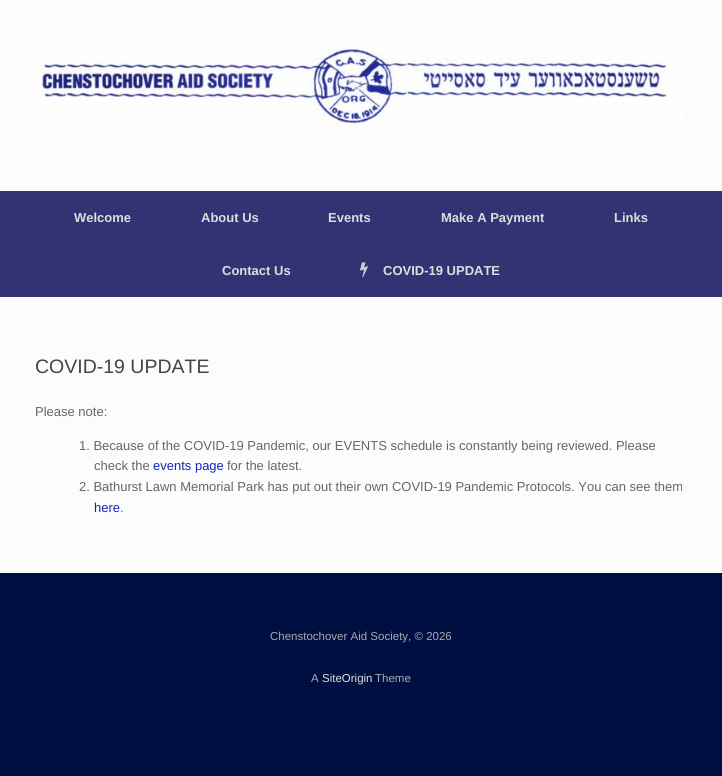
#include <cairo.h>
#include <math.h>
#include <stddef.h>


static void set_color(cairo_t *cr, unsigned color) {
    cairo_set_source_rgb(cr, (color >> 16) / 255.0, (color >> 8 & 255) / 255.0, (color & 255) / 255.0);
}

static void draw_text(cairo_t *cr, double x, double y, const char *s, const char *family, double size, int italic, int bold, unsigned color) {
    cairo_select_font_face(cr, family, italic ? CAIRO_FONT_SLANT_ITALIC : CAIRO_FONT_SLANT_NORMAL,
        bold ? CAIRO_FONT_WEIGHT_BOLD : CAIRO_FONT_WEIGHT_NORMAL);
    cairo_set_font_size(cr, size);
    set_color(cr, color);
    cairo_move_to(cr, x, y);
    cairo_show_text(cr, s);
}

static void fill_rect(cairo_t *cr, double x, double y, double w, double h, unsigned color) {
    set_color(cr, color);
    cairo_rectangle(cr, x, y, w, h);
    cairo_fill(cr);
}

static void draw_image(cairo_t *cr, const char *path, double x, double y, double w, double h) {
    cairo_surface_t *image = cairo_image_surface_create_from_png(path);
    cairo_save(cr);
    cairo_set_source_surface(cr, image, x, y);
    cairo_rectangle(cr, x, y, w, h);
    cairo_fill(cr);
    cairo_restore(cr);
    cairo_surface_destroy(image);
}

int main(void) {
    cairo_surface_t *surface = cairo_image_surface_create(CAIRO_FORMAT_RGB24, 722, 776);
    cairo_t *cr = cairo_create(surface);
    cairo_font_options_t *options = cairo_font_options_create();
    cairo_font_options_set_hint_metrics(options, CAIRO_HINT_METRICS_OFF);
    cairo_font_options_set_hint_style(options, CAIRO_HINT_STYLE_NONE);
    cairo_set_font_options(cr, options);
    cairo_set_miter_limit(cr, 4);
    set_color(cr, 0x000F42);
    cairo_paint(cr);
    fill_rect(cr, 0, 0, 722, 191, 0xFCFCFC);
    draw_image(cr, "assets/img1.png", 35, 45, 652, 79);
    fill_rect(cr, 0, 191, 722, 106, 0x323373);
    draw_text(cr, 74, 222, "Welcome", "Liberation Sans", 13, 0, 1, 0xDDDDDD);
    draw_text(cr, 201, 222, "About Us", "Liberation Sans", 13, 0, 1, 0xDDDDDD);
    draw_text(cr, 328, 222, "Events", "Liberation Sans", 13, 0, 1, 0xDDDDDD);
    draw_text(cr, 441, 222, "Make A Payment", "Liberation Sans", 13, 0, 1, 0xDDDDDD);
    draw_text(cr, 614, 222, "Links", "Liberation Sans", 13, 0, 1, 0xDDDDDD);
    draw_text(cr, 222, 275, "Contact Us", "Liberation Sans", 13, 0, 1, 0xDDDDDD);
    draw_image(cr, "assets/img2.png", 360, 262, 8, 16);
    draw_text(cr, 383, 275, "COVID-19 UPDATE", "Liberation Sans", 13, 0, 1, 0xDDDDDD);
    fill_rect(cr, 0, 297, 722, 276, 0xFCFCFC);
    draw_text(cr, 35, 373, "COVID-19 UPDATE", "Liberation Sans", 19.5, 0, 0, 0x444444);
    draw_text(cr, 35, 416, "Please note:", "Liberation Sans", 13, 0, 0, 0x666666);
    draw_text(cr, 79, 450, "1. Because of the COVID-19 Pandemic, our EVENTS schedule is constantly being reviewed. Please", "Liberation Sans", 13, 0, 0, 0x666666);
    draw_text(cr, 94, 470, "check the", "Liberation Sans", 13, 0, 0, 0x666666);
    draw_text(cr, 153, 470, "events page", "Liberation Sans", 13, 0, 0, 0x1525B5);
    draw_text(cr, 227, 470, "for the latest.", "Liberation Sans", 13, 0, 0, 0x666666);
    draw_text(cr, 79, 491, "2. Bathurst Lawn Memorial Park has put out their own COVID-19 Pandemic Protocols. You can see them", "Liberation Sans", 13, 0, 0, 0x666666);
    draw_text(cr, 94, 512, "here", "Liberation Sans", 13, 0, 0, 0x1525B5);
    draw_text(cr, 120, 512, ".", "Liberation Sans", 13, 0, 0, 0x666666);
    draw_text(cr, 270, 640, "Chenstochover Aid Society, © 2026", "Liberation Sans", 11.5, 0, 0, 0xAAAAAA);
    draw_text(cr, 311, 682, "A", "Liberation Sans", 11.5, 0, 0, 0xAAAAAA);
    draw_text(cr, 322, 682, "SiteOrigin", "Liberation Sans", 11.5, 0, 0, 0xDDDDDD);
    draw_text(cr, 375, 682, "Theme", "Liberation Sans", 11.5, 0, 0, 0xAAAAAA);
    cairo_surface_write_to_png(surface, "output.png");
    cairo_font_options_destroy(options);
    cairo_destroy(cr);
    cairo_surface_destroy(surface);
    return 0;
}
